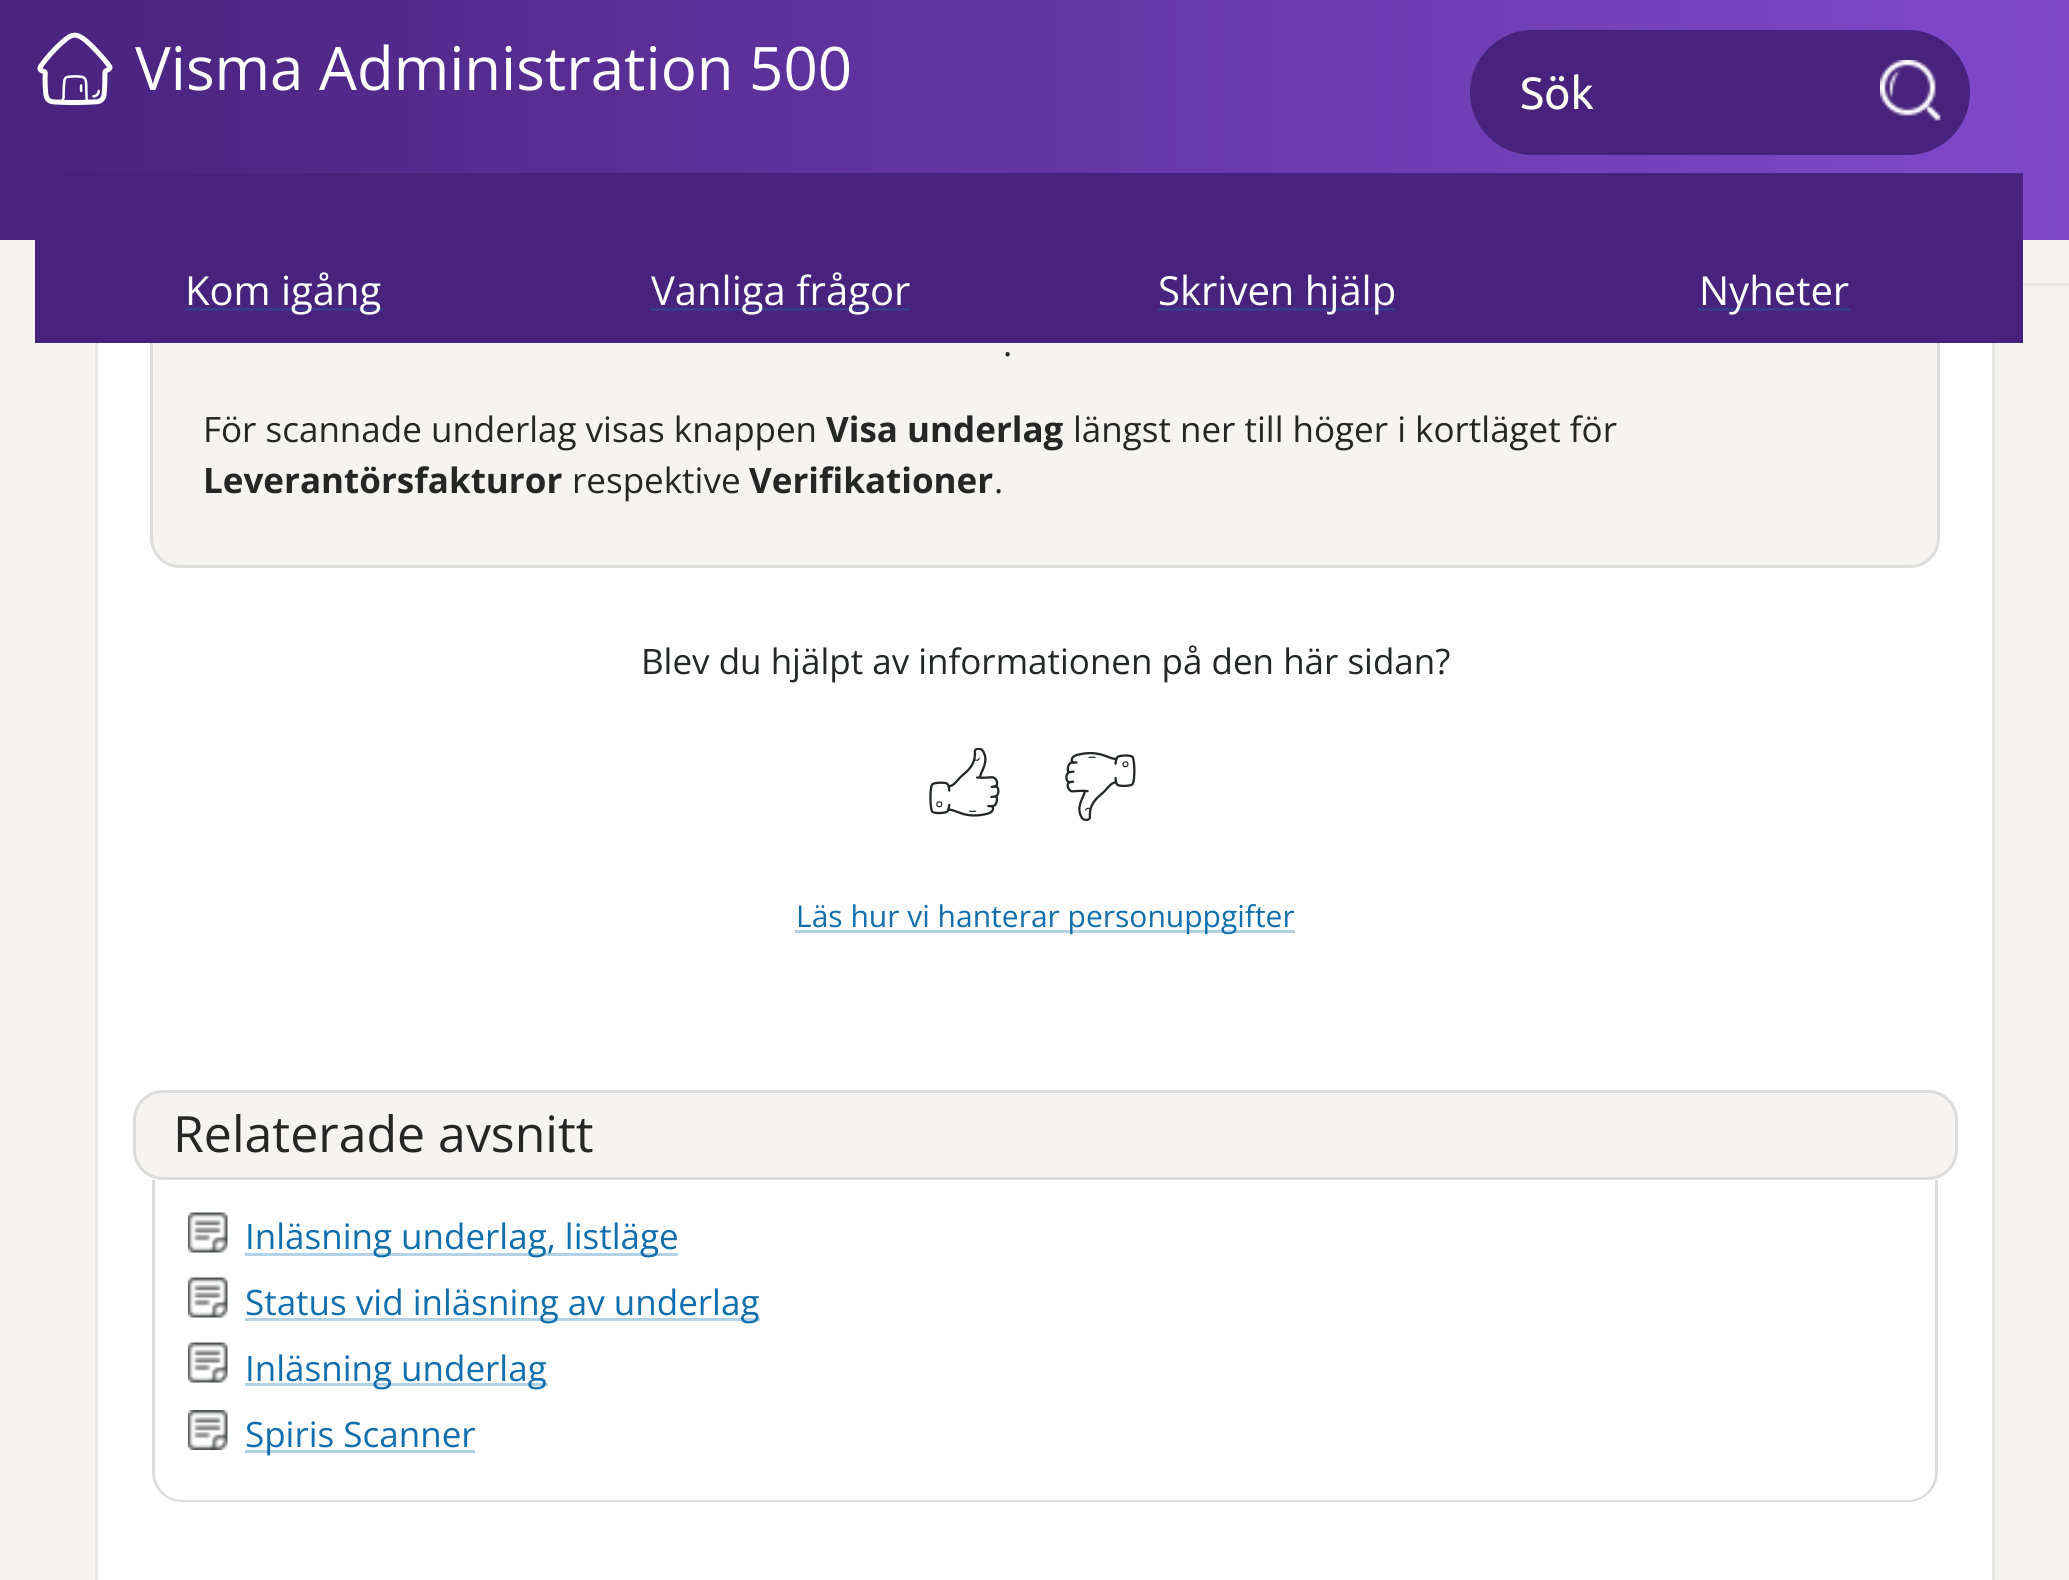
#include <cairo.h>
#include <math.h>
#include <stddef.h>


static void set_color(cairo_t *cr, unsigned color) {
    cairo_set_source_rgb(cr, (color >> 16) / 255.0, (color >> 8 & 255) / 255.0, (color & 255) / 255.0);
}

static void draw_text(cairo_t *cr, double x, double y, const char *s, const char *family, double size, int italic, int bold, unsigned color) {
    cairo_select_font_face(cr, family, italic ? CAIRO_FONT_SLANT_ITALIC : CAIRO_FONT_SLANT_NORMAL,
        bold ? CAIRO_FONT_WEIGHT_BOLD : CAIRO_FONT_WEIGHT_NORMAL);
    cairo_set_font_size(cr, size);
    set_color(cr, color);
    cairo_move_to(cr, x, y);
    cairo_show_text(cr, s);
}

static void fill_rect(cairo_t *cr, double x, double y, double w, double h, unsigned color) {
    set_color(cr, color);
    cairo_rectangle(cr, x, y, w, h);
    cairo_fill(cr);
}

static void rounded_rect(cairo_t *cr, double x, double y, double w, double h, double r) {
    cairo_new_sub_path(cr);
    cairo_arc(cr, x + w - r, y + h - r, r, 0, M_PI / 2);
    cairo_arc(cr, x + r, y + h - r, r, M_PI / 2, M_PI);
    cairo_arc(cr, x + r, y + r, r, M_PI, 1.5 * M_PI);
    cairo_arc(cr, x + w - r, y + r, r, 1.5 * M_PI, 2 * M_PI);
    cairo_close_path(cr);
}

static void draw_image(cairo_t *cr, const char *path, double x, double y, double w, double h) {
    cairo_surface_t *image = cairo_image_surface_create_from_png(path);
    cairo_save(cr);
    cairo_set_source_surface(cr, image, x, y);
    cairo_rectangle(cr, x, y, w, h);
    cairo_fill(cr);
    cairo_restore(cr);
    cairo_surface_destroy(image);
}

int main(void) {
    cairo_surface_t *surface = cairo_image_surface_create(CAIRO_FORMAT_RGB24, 2069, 1580);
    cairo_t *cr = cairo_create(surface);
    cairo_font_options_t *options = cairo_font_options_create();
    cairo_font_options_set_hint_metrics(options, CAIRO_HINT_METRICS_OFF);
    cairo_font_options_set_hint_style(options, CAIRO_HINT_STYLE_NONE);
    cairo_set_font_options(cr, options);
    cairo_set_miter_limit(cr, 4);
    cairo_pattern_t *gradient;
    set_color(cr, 0xF5F4F0);
    cairo_paint(cr);
    fill_rect(cr, 98, 343, 1894, 1237, 0xFFFFFF);
    set_color(cr, 0xE7E7E7);
    cairo_set_fill_rule(cr, CAIRO_FILL_RULE_EVEN_ODD);
    cairo_new_path(cr);
    cairo_move_to(cr, 125, -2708);
    cairo_line_to(cr, 1965, -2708);
    cairo_curve_to(cr, 1982, -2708, 1995, -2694, 1995, -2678);
    cairo_line_to(cr, 1995, 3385);
    cairo_curve_to(cr, 1995, 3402, 1982, 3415, 1965, 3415);
    cairo_line_to(cr, 125, 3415);
    cairo_curve_to(cr, 108, 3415, 95, 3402, 95, 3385);
    cairo_line_to(cr, 95, -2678);
    cairo_curve_to(cr, 95, -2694, 108, -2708, 125, -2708);
    cairo_close_path(cr);
    cairo_move_to(cr, 125, -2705);
    cairo_line_to(cr, 1965, -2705);
    cairo_curve_to(cr, 1980, -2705, 1992, -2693, 1992, -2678);
    cairo_line_to(cr, 1992, 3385);
    cairo_curve_to(cr, 1992, 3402, 1980, 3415, 1965, 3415);
    cairo_line_to(cr, 125, 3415);
    cairo_curve_to(cr, 110, 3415, 98, 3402, 98, 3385);
    cairo_line_to(cr, 98, -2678);
    cairo_curve_to(cr, 98, -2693, 110, -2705, 125, -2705);
    cairo_close_path(cr);
    cairo_fill(cr);
    set_color(cr, 0xF5F4F0);
    rounded_rect(cr, 151.5, 81.5, 1787, 485, 28.5);
    cairo_fill_preserve(cr);
    set_color(cr, 0xDDDDDD);
    cairo_set_line_width(cr, 3);
    cairo_stroke(cr);
    gradient = cairo_pattern_create_linear(0, 120, 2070, 120);
    cairo_pattern_add_color_stop_rgba(gradient, 0, 0.282, 0.137, 0.49, 1);
    cairo_pattern_add_color_stop_rgba(gradient, 1, 0.502, 0.286, 0.8, 1);
    cairo_set_source(cr, gradient);
    cairo_pattern_destroy(gradient);
    cairo_rectangle(cr, 0, 0, 2069, 240);
    cairo_fill(cr);
    fill_rect(cr, 2023, 283, 46, 3, 0xE7E7E7);
    draw_image(cr, "assets/img1.png", 37, 32, 76, 73);
    draw_text(cr, 135, 90, "Visma Administration 500", "Open Sans", 60, 0, 0, 0xFFFFFF);
    fill_rect(cr, 35, 173, 1988, 170, 0x48237D);
    fill_rect(cr, 185, 308, 198, 3, 0x373B8C);
    draw_text(cr, 185, 305, "Kom igång", "Open Sans", 40, 0, 0, 0xFFFFFF);
    fill_rect(cr, 650, 308, 260, 3, 0x373B8C);
    draw_text(cr, 651, 305, "Vanliga frågor", "Open Sans", 40, 0, 0, 0xFFFFFF);
    fill_rect(cr, 1158, 308, 237, 3, 0x373B8C);
    draw_text(cr, 1158, 305, "Skriven hjälp", "Open Sans", 40, 0, 0, 0xFFFFFF);
    fill_rect(cr, 1698, 308, 152, 3, 0x373B8C);
    draw_text(cr, 1699, 305, "Nyheter", "Open Sans", 40, 0, 0, 0xFFFFFF);
    set_color(cr, 0x48237D);
    rounded_rect(cr, 1470, 30, 500, 125, 62.5);
    cairo_fill(cr);
    draw_text(cr, 1520, 109, "Sök", "Ubuntu", 45, 0, 0, 0xFFFFF5);
    draw_image(cr, "assets/img2.png", 1880, 60, 61, 61);
    draw_text(cr, 1003, 356, ".", "Open Sans", 35, 0, 0, 0x252626);
    draw_text(cr, 203, 442, "För scannade underlag visas knappen", "Open Sans", 35, 0, 0, 0x252626);
    draw_text(cr, 826, 442, "Visa underlag", "Open Sans", 35, 0, 1, 0x252626);
    draw_text(cr, 1073, 442, "längst ner till höger i kortläget för", "Open Sans", 35, 0, 0, 0x252626);
    draw_text(cr, 203, 493, "Leverantörsfakturor", "Open Sans", 35, 0, 1, 0x252626);
    draw_text(cr, 572, 493, "respektive", "Open Sans", 35, 0, 0, 0x252626);
    draw_text(cr, 749, 493, "Verifikationer", "Open Sans", 35, 0, 1, 0x252626);
    draw_text(cr, 994, 493, ".", "Open Sans", 35, 0, 0, 0x252626);
    draw_text(cr, 641, 674, "Blev du hjälpt av informationen på den här sidan?", "Open Sans", 35, 0, 0, 0x252626);
    draw_image(cr, "assets/img3.png", 929, 748, 71, 69);
    draw_image(cr, "assets/img4.png", 1065, 752, 71, 70);
    fill_rect(cr, 795, 930, 500, 3, 0xB4D2E6);
    draw_text(cr, 796, 927, "Läs hur vi hanterar personuppgifter", "Open Sans", 30, 0, 0, 0x116FAE);
    set_color(cr, 0xF5F4F0);
    rounded_rect(cr, 134.5, 1091.5, 1822, 87, 28.5);
    cairo_fill_preserve(cr);
    set_color(cr, 0xDCDCDC);
    cairo_stroke(cr);
    draw_text(cr, 173, 1152, "Relaterade avsnitt", "Open Sans", 50, 0, 0, 0x252626);
    set_color(cr, 0xDCDCDC);
    cairo_new_path(cr);
    cairo_move_to(cr, 152, 1180);
    cairo_line_to(cr, 1938, 1180);
    cairo_line_to(cr, 1938, 1472);
    cairo_curve_to(cr, 1938, 1489, 1924, 1502, 1908, 1502);
    cairo_line_to(cr, 182, 1502);
    cairo_curve_to(cr, 166, 1502, 152, 1489, 152, 1472);
    cairo_close_path(cr);
    cairo_move_to(cr, 155, 1180);
    cairo_line_to(cr, 1935, 1180);
    cairo_line_to(cr, 1935, 1472);
    cairo_curve_to(cr, 1935, 1488, 1923, 1500, 1908, 1500);
    cairo_line_to(cr, 182, 1500);
    cairo_curve_to(cr, 167, 1500, 155, 1488, 155, 1472);
    cairo_close_path(cr);
    cairo_fill(cr);
    draw_image(cr, "assets/img5.png", 188, 1212, 40, 41);
    fill_rect(cr, 245, 1253, 433, 3, 0xB4D2E6);
    draw_text(cr, 245, 1249, "Inläsning underlag, listläge", "Open Sans", 35, 0, 0, 0x116FAE);
    draw_image(cr, "assets/img5.png", 188, 1277, 40, 41);
    fill_rect(cr, 245, 1318, 515, 3, 0xB4D2E6);
    draw_text(cr, 245, 1315, "Status vid inläsning av underlag", "Open Sans", 35, 0, 0, 0x116FAE);
    draw_image(cr, "assets/img5.png", 188, 1342, 40, 41);
    fill_rect(cr, 245, 1383, 303, 3, 0xB4D2E6);
    draw_text(cr, 245, 1381, "Inläsning underlag", "Open Sans", 35, 0, 0, 0x116FAE);
    draw_image(cr, "assets/img6.png", 188, 1410, 40, 40);
    fill_rect(cr, 245, 1450, 230, 3, 0xB4D2E6);
    draw_text(cr, 245, 1447, "Spiris Scanner", "Open Sans", 35, 0, 0, 0x116FAE);
    cairo_surface_write_to_png(surface, "output.png");
    cairo_font_options_destroy(options);
    cairo_destroy(cr);
    cairo_surface_destroy(surface);
    return 0;
}
